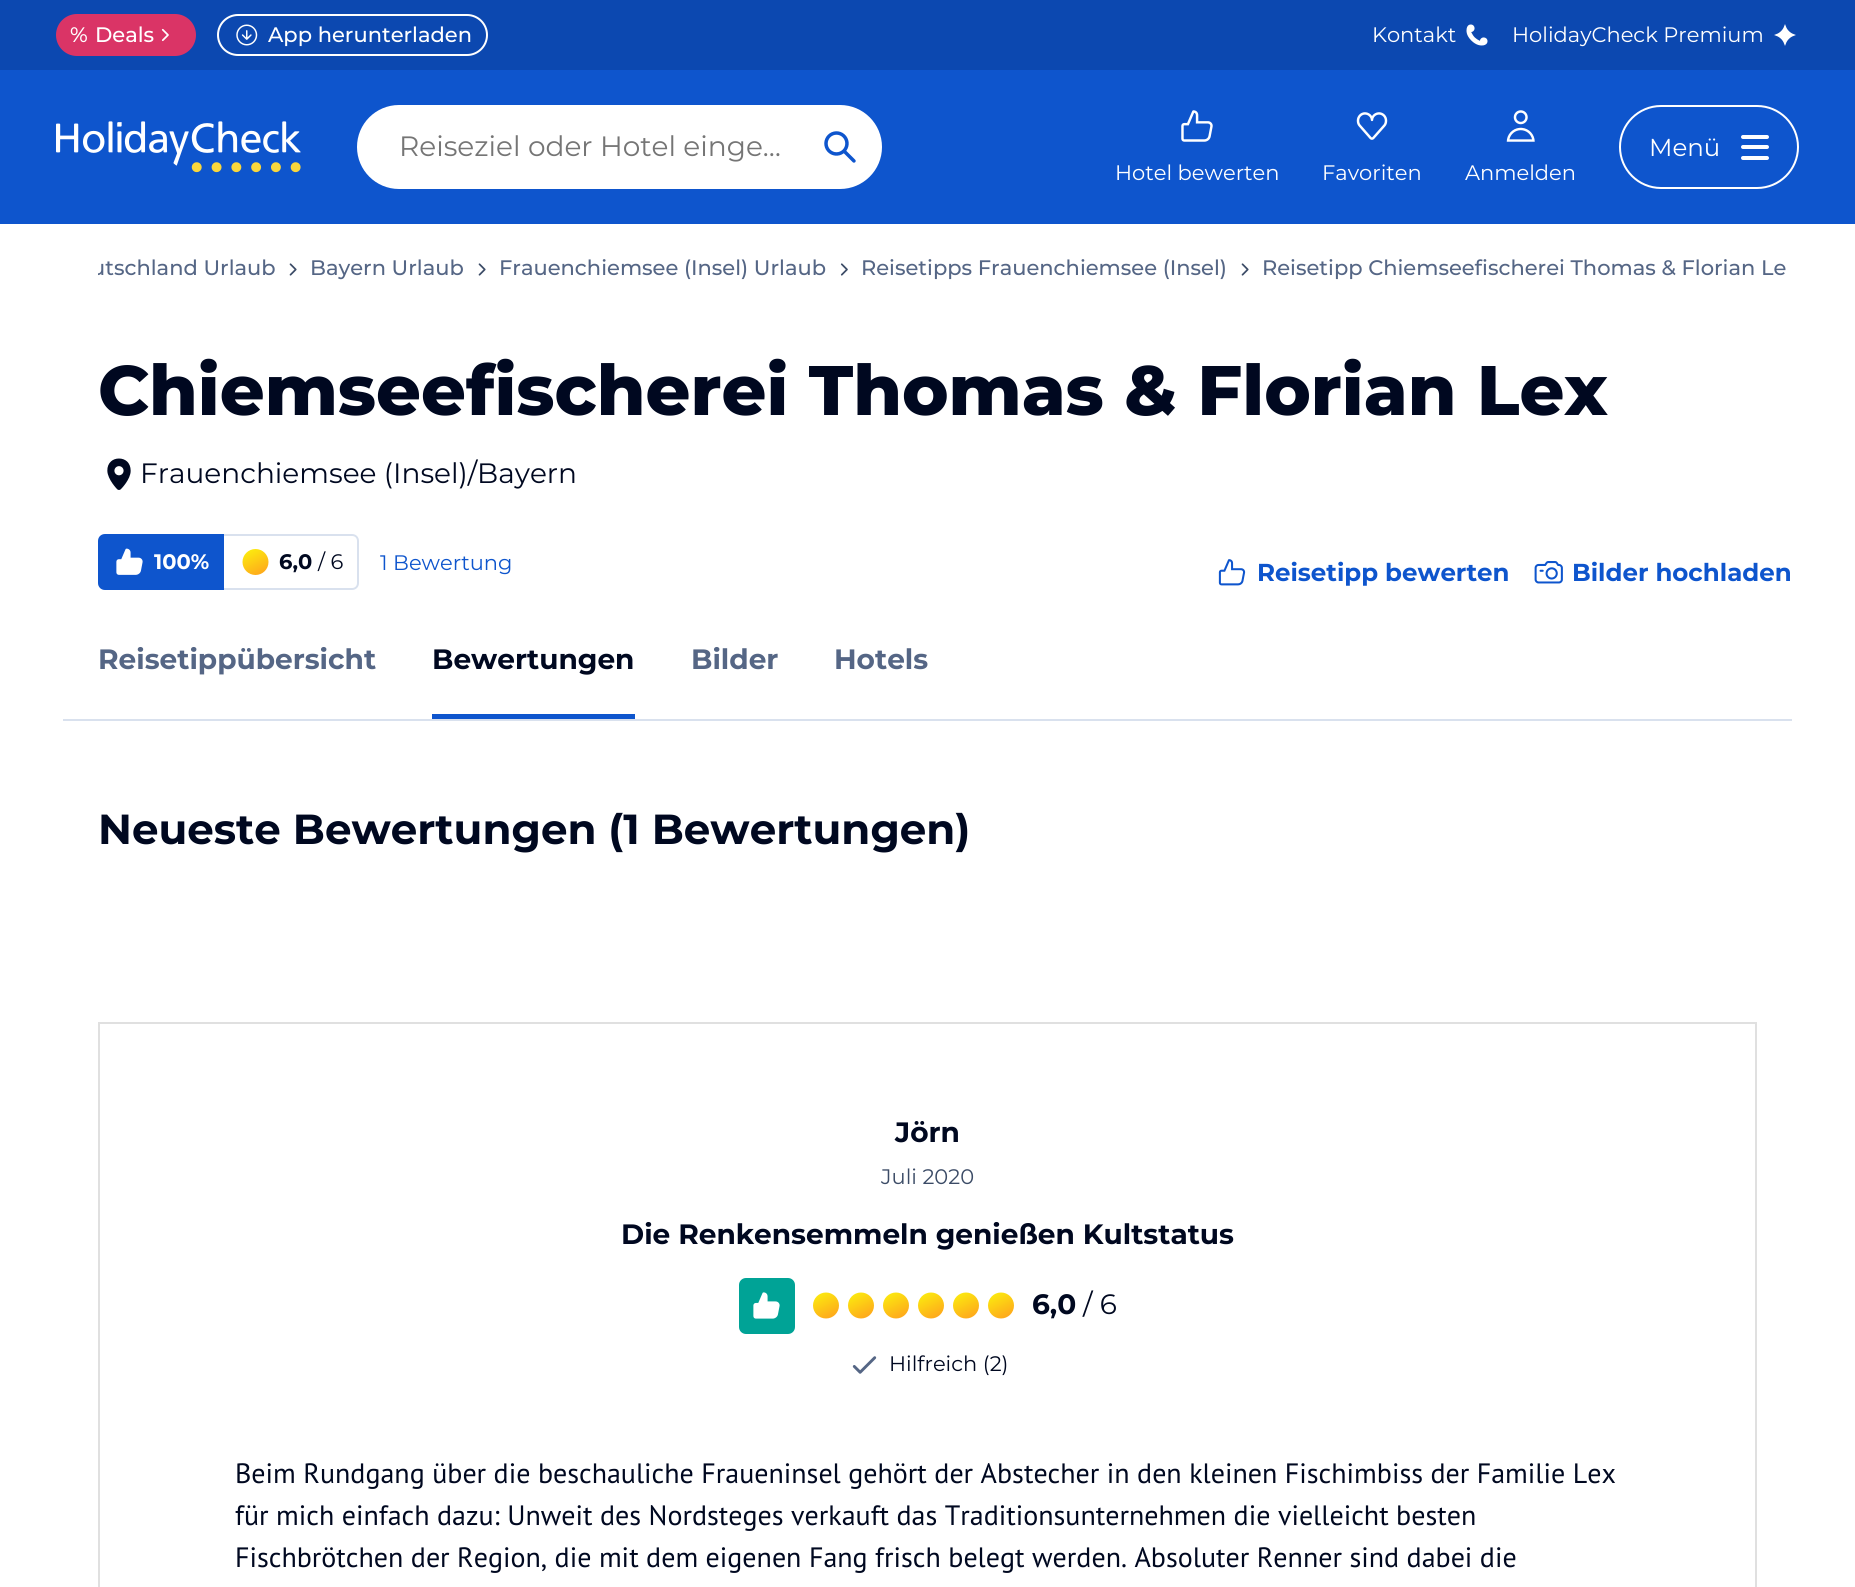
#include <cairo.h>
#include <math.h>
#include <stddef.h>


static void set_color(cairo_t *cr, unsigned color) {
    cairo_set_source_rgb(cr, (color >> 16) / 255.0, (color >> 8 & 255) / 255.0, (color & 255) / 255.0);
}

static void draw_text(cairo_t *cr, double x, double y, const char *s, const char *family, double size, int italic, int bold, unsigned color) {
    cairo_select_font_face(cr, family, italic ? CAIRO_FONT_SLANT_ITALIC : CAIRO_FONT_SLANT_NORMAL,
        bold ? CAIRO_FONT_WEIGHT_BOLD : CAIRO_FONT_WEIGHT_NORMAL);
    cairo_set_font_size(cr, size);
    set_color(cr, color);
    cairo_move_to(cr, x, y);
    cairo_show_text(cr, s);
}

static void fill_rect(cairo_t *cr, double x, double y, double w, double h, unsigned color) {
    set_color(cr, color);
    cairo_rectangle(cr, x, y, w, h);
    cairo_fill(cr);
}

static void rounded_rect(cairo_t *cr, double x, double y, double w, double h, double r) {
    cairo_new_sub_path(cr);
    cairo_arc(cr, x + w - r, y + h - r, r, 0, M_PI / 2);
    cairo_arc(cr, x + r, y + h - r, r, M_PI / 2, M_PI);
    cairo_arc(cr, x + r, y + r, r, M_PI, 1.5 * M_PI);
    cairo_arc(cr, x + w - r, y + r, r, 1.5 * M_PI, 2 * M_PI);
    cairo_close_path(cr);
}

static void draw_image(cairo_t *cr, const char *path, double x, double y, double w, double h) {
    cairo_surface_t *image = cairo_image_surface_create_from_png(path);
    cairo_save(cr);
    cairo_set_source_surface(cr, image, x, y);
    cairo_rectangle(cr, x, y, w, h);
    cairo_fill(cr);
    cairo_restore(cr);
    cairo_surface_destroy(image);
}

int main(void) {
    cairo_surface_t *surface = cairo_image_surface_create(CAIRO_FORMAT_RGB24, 1855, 1587);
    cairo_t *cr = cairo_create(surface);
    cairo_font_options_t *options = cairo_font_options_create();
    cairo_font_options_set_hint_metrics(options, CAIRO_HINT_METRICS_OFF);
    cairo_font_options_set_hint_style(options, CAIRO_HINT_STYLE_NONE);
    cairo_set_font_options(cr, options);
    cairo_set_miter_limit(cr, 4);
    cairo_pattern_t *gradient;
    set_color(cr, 0xFFFFFF);
    cairo_paint(cr);
    fill_rect(cr, 0, 0, 1855, 70, 0x0C48B0);
    set_color(cr, 0xDA3466);
    rounded_rect(cr, 56, 14, 140, 42, 21);
    cairo_fill(cr);
    draw_text(cr, 70, 42, "%", "Montserrat Medium", 21, 0, 0, 0xFFFFFF);
    draw_text(cr, 95, 42, "Deals", "Montserrat Medium", 21, 0, 0, 0xFFFFFF);
    draw_image(cr, "assets/img1.png", 161, 28, 8, 14);
    rounded_rect(cr, 218, 15, 269, 40, 20);
    cairo_stroke(cr);
    draw_image(cr, "assets/img2.png", 236, 24, 22, 22);
    draw_text(cr, 268, 42, "App herunterladen", "Montserrat Medium", 21, 0, 0, 0xFFFFFF);
    draw_text(cr, 1372, 42, "Kontakt", "Montserrat", 21, 0, 0, 0xFFFFFF);
    draw_image(cr, "assets/img3.png", 1466, 24, 22, 22);
    draw_text(cr, 1512, 42, "HolidayCheck Premium", "Montserrat", 21, 0, 0, 0xFFFFFF);
    draw_image(cr, "assets/img4.png", 1774, 24, 22, 22);
    fill_rect(cr, 0, 70, 1855, 154, 0x0E55CD);
    draw_image(cr, "assets/img5.png", 56, 121, 245, 52);
    set_color(cr, 0xFFFFFF);
    rounded_rect(cr, 357, 105, 525, 84, 42);
    cairo_fill(cr);
    draw_text(cr, 399, 156, "Reiseziel oder Hotel einge…", "Montserrat", 28, 0, 0, 0x757575);
    draw_image(cr, "assets/img6.png", 824, 131, 32, 32);
    rounded_rect(cr, 1620, 106, 178, 82, 41);
    set_color(cr, 0xFFFFFF);
    cairo_stroke(cr);
    draw_text(cr, 1649, 156, "Menü", "Montserrat", 24.5, 0, 0, 0xFFFFFF);
    rounded_rect(cr, 1741, 135, 28, 4, 2);
    cairo_fill(cr);
    rounded_rect(cr, 1741, 156, 28, 4, 2);
    cairo_fill(cr);
    rounded_rect(cr, 1741, 145, 28, 4, 2);
    cairo_fill(cr);
    draw_image(cr, "assets/img7.png", 1181, 110, 32, 32);
    draw_text(cr, 1115, 180, "Hotel bewerten", "Montserrat", 21, 0, 0, 0xFFFFFF);
    draw_image(cr, "assets/img8.png", 1356, 112, 32, 28);
    draw_text(cr, 1322, 180, "Favoriten", "Montserrat", 21, 0, 0, 0xFFFFFF);
    draw_image(cr, "assets/img9.png", 1506, 110, 29, 32);
    draw_text(cr, 1465, 180, "Anmelden", "Montserrat", 21, 0, 0, 0xFFFFFF);
    cairo_save(cr);
    cairo_rectangle(cr, 98, 224, 1694, 89);
    cairo_clip(cr);
    draw_text(cr, 91, 275, "utschland Urlaub", "Montserrat Medium", 21, 0, 0, 0x556685);
    cairo_restore(cr);
    draw_image(cr, "assets/img10.png", 289, 263, 8, 13);
    draw_text(cr, 310, 275, "Bayern Urlaub", "Montserrat Medium", 21, 0, 0, 0x556685);
    draw_image(cr, "assets/img10.png", 478, 263, 8, 13);
    draw_text(cr, 499, 275, "Frauenchiemsee (Insel) Urlaub", "Montserrat Medium", 21, 0, 0, 0x556685);
    draw_image(cr, "assets/img11.png", 840, 263, 8, 13);
    draw_text(cr, 861, 275, "Reisetipps Frauenchiemsee (Insel)", "Montserrat Medium", 21, 0, 0, 0x556685);
    draw_image(cr, "assets/img10.png", 1241, 263, 8, 13);
    draw_text(cr, 1262, 275, "Reisetipp Chiemseefischerei Thomas & Florian Le", "Montserrat Medium", 21, 0, 0, 0x556685);
    draw_text(cr, 98, 415, "Chiemseefischerei Thomas & Florian Lex", "Montserrat ExtraBold", 70, 0, 0, 0x000820);
    draw_image(cr, "assets/img12.png", 107, 458, 24, 32);
    draw_text(cr, 140, 483, "Frauenchiemsee (Insel)/Bayern", "Montserrat", 28, 0, 0, 0x000820);
    set_color(cr, 0x0E55CD);
    cairo_new_path(cr);
    cairo_move_to(cr, 105, 534);
    cairo_line_to(cr, 224, 534);
    cairo_line_to(cr, 224, 590);
    cairo_line_to(cr, 105, 590);
    cairo_curve_to(cr, 101, 590, 98, 587, 98, 583);
    cairo_line_to(cr, 98, 541);
    cairo_curve_to(cr, 98, 537, 101, 534, 105, 534);
    cairo_close_path(cr);
    cairo_fill(cr);
    draw_image(cr, "assets/img13.png", 116, 548, 27, 27);
    draw_text(cr, 154, 569, "100%", "Montserrat", 21, 0, 1, 0xFFFFFF);
    set_color(cr, 0xD9E1EE);
    cairo_set_fill_rule(cr, CAIRO_FILL_RULE_EVEN_ODD);
    cairo_new_path(cr);
    cairo_move_to(cr, 224, 534);
    cairo_line_to(cr, 352, 534);
    cairo_curve_to(cr, 356, 534, 359, 537, 359, 541);
    cairo_line_to(cr, 359, 583);
    cairo_curve_to(cr, 359, 587, 356, 590, 352, 590);
    cairo_line_to(cr, 224, 590);
    cairo_close_path(cr);
    cairo_move_to(cr, 224, 536);
    cairo_line_to(cr, 352, 536);
    cairo_curve_to(cr, 355, 536, 357, 538, 357, 541);
    cairo_line_to(cr, 357, 583);
    cairo_curve_to(cr, 357, 586, 355, 588, 352, 588);
    cairo_line_to(cr, 224, 588);
    cairo_close_path(cr);
    cairo_fill(cr);
    gradient = cairo_pattern_create_linear(250, 551, 261, 573);
    cairo_pattern_add_color_stop_rgba(gradient, 0, 0.988, 0.906, 0.059, 1);
    cairo_pattern_add_color_stop_rgba(gradient, 1, 0.996, 0.675, 0.106, 1);
    cairo_set_source(cr, gradient);
    cairo_pattern_destroy(gradient);
    cairo_arc(cr, 255.5, 562, 13, 0, 2 * M_PI);
    cairo_fill(cr);
    draw_text(cr, 279, 569, "6,0", "Montserrat", 21, 0, 1, 0x000820);
    draw_text(cr, 318, 569, "/ 6", "Montserrat", 21, 0, 0, 0x000820);
    draw_text(cr, 380, 570, "1 Bewertung", "Montserrat", 21, 0, 0, 0x0E55CD);
    draw_image(cr, "assets/img14.png", 1218, 559, 28, 27);
    draw_text(cr, 1257, 581, "Reisetipp bewerten", "Montserrat", 24.5, 0, 1, 0x0E55CD);
    draw_image(cr, "assets/img15.png", 1534, 561, 29, 23);
    draw_text(cr, 1572, 581, "Bilder hochladen", "Montserrat", 24.5, 0, 1, 0x0E55CD);
    fill_rect(cr, 63, 719, 1729, 2, 0xD9E1EE);
    draw_text(cr, 98, 669, "Reisetippübersicht", "Montserrat", 28, 0, 1, 0x556685);
    fill_rect(cr, 432, 714, 203, 5, 0x0E55CD);
    draw_text(cr, 432, 669, "Bewertungen", "Montserrat", 28, 0, 1, 0x000820);
    draw_text(cr, 691, 669, "Bilder", "Montserrat", 28, 0, 1, 0x556685);
    draw_text(cr, 834, 669, "Hotels", "Montserrat", 28, 0, 1, 0x556685);
    draw_text(cr, 98, 844, "Neueste Bewertungen (1 Bewertungen)", "Montserrat", 42, 0, 1, 0x000820);
    cairo_rectangle(cr, 99, 1023, 1657, 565);
    set_color(cr, 0xE0E0E0);
    cairo_stroke(cr);
    draw_text(cr, 895, 1142, "Jörn", "Montserrat", 28, 0, 1, 0x000820);
    draw_text(cr, 881, 1184, "Juli 2020", "Montserrat", 21, 0, 0, 0x3B4B66);
    draw_text(cr, 621, 1244, "Die Renkensemmeln genießen Kultstatus", "Montserrat", 28, 0, 1, 0x000820);
    set_color(cr, 0x00A396);
    rounded_rect(cr, 739, 1278, 56, 56, 7);
    cairo_fill(cr);
    draw_image(cr, "assets/img16.png", 753, 1292, 27, 27);
    gradient = cairo_pattern_create_linear(820, 1294, 831, 1316);
    cairo_pattern_add_color_stop_rgba(gradient, 0, 0.988, 0.906, 0.059, 1);
    cairo_pattern_add_color_stop_rgba(gradient, 1, 0.996, 0.675, 0.106, 1);
    cairo_set_source(cr, gradient);
    cairo_pattern_destroy(gradient);
    cairo_arc(cr, 826, 1305.5, 13, 0, 2 * M_PI);
    cairo_fill(cr);
    gradient = cairo_pattern_create_linear(855, 1294, 866, 1316);
    cairo_pattern_add_color_stop_rgba(gradient, 0, 0.988, 0.906, 0.059, 1);
    cairo_pattern_add_color_stop_rgba(gradient, 1, 0.996, 0.675, 0.106, 1);
    cairo_set_source(cr, gradient);
    cairo_pattern_destroy(gradient);
    cairo_arc(cr, 861, 1305.5, 13, 0, 2 * M_PI);
    cairo_fill(cr);
    gradient = cairo_pattern_create_linear(890, 1294, 901, 1316);
    cairo_pattern_add_color_stop_rgba(gradient, 0, 0.988, 0.906, 0.059, 1);
    cairo_pattern_add_color_stop_rgba(gradient, 1, 0.996, 0.675, 0.106, 1);
    cairo_set_source(cr, gradient);
    cairo_pattern_destroy(gradient);
    cairo_arc(cr, 896, 1305.5, 13, 0, 2 * M_PI);
    cairo_fill(cr);
    gradient = cairo_pattern_create_linear(925, 1294, 936, 1316);
    cairo_pattern_add_color_stop_rgba(gradient, 0, 0.988, 0.906, 0.059, 1);
    cairo_pattern_add_color_stop_rgba(gradient, 1, 0.996, 0.675, 0.106, 1);
    cairo_set_source(cr, gradient);
    cairo_pattern_destroy(gradient);
    cairo_arc(cr, 931, 1305.5, 13, 0, 2 * M_PI);
    cairo_fill(cr);
    gradient = cairo_pattern_create_linear(960, 1294, 971, 1316);
    cairo_pattern_add_color_stop_rgba(gradient, 0, 0.988, 0.906, 0.059, 1);
    cairo_pattern_add_color_stop_rgba(gradient, 1, 0.996, 0.675, 0.106, 1);
    cairo_set_source(cr, gradient);
    cairo_pattern_destroy(gradient);
    cairo_arc(cr, 966, 1305.5, 13, 0, 2 * M_PI);
    cairo_fill(cr);
    gradient = cairo_pattern_create_linear(995, 1294, 1006, 1316);
    cairo_pattern_add_color_stop_rgba(gradient, 0, 0.988, 0.906, 0.059, 1);
    cairo_pattern_add_color_stop_rgba(gradient, 1, 0.996, 0.675, 0.106, 1);
    cairo_set_source(cr, gradient);
    cairo_pattern_destroy(gradient);
    cairo_arc(cr, 1001, 1305.5, 13, 0, 2 * M_PI);
    cairo_fill(cr);
    draw_text(cr, 1032, 1314, "6,0", "Montserrat", 28, 0, 1, 0x000820);
    draw_text(cr, 1083, 1314, "/ 6", "Montserrat", 28, 0, 0, 0x000820);
    draw_image(cr, "assets/img17.png", 852, 1356, 25, 18);
    draw_text(cr, 889, 1371, "Hilfreich (2)", "Montserrat", 21, 0, 0, 0x000820);
    draw_text(cr, 235, 1483, "Beim Rundgang über die beschauliche Fraueninsel gehört der Abstecher in den kleinen Fischimbiss der Familie Lex", "PT Sans", 28, 0, 0, 0x000820);
    draw_text(cr, 235, 1525, "für mich einfach dazu: Unweit des Nordsteges verkauft das Traditionsunternehmen die vielleicht besten", "PT Sans", 28, 0, 0, 0x000820);
    draw_text(cr, 235, 1567, "Fischbrötchen der Region, die mit dem eigenen Fang frisch belegt werden. Absoluter Renner sind dabei die", "PT Sans", 28, 0, 0, 0x000820);
    cairo_surface_write_to_png(surface, "output.png");
    cairo_font_options_destroy(options);
    cairo_destroy(cr);
    cairo_surface_destroy(surface);
    return 0;
}
